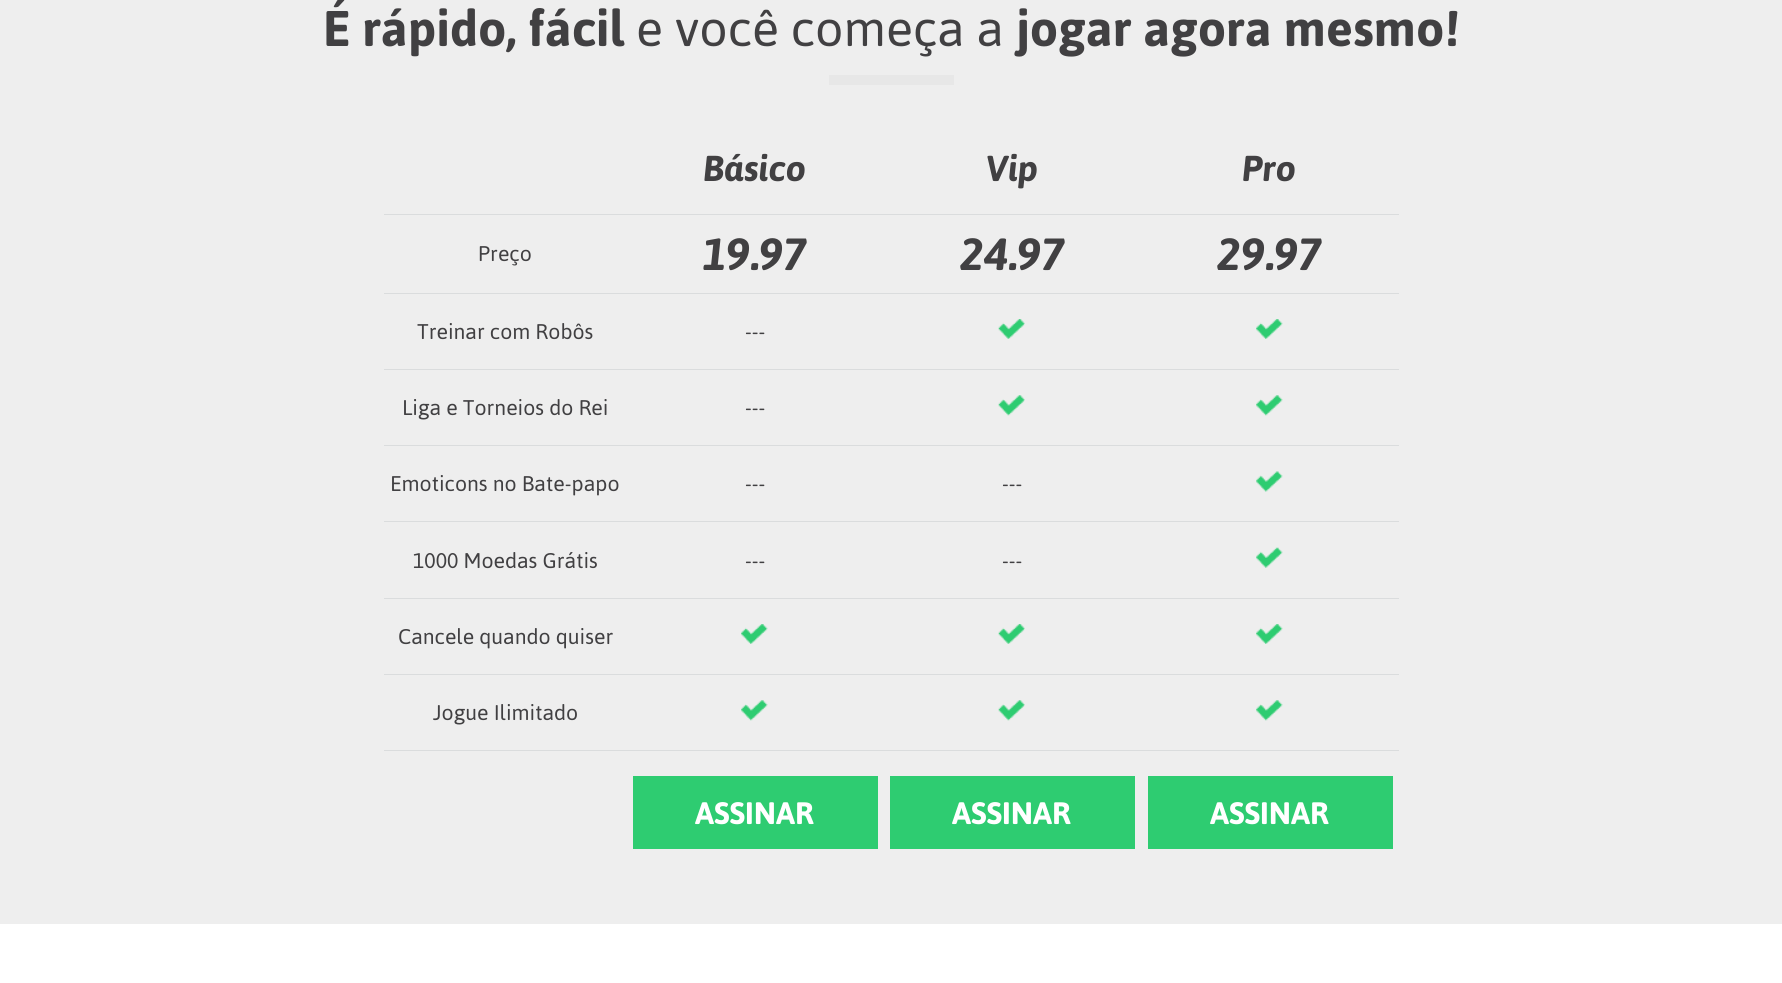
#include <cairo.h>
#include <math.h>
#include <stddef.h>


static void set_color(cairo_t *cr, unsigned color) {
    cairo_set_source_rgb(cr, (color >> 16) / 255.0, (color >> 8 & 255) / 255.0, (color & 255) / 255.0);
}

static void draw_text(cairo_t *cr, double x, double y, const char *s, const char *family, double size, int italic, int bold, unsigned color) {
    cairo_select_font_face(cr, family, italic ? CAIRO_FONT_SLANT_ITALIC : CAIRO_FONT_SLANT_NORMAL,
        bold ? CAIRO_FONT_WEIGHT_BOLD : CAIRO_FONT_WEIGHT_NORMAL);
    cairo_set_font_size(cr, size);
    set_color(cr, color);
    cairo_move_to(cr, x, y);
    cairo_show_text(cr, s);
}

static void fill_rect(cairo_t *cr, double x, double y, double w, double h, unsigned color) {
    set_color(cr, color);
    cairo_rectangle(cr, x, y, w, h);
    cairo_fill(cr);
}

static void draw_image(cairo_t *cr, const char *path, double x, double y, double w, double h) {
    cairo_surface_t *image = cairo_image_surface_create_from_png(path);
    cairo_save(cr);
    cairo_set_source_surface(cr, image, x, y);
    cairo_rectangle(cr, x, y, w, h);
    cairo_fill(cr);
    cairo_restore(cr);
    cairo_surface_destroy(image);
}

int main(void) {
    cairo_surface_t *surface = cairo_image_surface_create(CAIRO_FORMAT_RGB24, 1782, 983);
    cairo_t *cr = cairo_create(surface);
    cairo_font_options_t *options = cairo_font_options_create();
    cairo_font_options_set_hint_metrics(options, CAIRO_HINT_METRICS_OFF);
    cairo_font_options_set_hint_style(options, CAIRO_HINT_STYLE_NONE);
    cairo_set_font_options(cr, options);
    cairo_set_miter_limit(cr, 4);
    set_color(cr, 0xFFFFFF);
    cairo_paint(cr);
    fill_rect(cr, 0, 0, 1782, 924, 0xEEEEEE);
    draw_text(cr, 323, 46, "É rápido, fácil", "Asap", 50, 0, 1, 0x414042);
    draw_text(cr, 636, 46, "e você começa a", "Asap", 50, 0, 0, 0x414042);
    draw_text(cr, 1016, 46, "jogar agora mesmo!", "Asap", 50, 0, 1, 0x414042);
    fill_rect(cr, 829, 75, 125, 10, 0xE7E7E7);
    draw_text(cr, 703, 181, "Básico", "Asap", 36, 1, 1, 0x414042);
    draw_text(cr, 986, 181, "Vip", "Asap", 36, 1, 1, 0x414042);
    fill_rect(cr, 384, 214, 1015, 1, 0xDADCDD);
    draw_text(cr, 1242, 181, "Pro", "Asap", 36, 1, 1, 0x414042);
    draw_text(cr, 478, 261, "Preço", "Asap", 21.25, 0, 0, 0x414042);
    draw_text(cr, 702, 270, "19.97", "Asap", 45, 1, 1, 0x414042);
    draw_text(cr, 960, 270, "24.97", "Asap", 45, 1, 1, 0x414042);
    fill_rect(cr, 384, 293, 1015, 1, 0xDADCDD);
    draw_text(cr, 1217, 270, "29.97", "Asap", 45, 1, 1, 0x414042);
    fill_rect(cr, 384, 369, 1015, 1, 0xDADCDD);
    draw_image(cr, "assets/img1.png", 1256, 319, 27, 20);
    draw_text(cr, 417, 339, "Treinar com Robôs", "Asap", 21.25, 0, 0, 0x414042);
    draw_text(cr, 745, 339, "---", "Asap", 21.25, 0, 0, 0x414042);
    draw_image(cr, "assets/img2.png", 998, 319, 27, 20);
    fill_rect(cr, 384, 445, 1015, 1, 0xDADCDD);
    draw_image(cr, "assets/img3.png", 1256, 395, 27, 21);
    draw_text(cr, 402, 415, "Liga e Torneios do Rei", "Asap", 21.25, 0, 0, 0x414042);
    draw_text(cr, 745, 415, "---", "Asap", 21.25, 0, 0, 0x414042);
    draw_image(cr, "assets/img4.png", 998, 395, 27, 21);
    fill_rect(cr, 384, 521, 1015, 1, 0xDADCDD);
    draw_image(cr, "assets/img5.png", 1256, 471, 27, 21);
    draw_text(cr, 390, 491, "Emoticons no Bate-papo", "Asap", 21.25, 0, 0, 0x414042);
    draw_text(cr, 745, 491, "---", "Asap", 21.25, 0, 0, 0x414042);
    draw_text(cr, 1002, 491, "---", "Asap", 21.25, 0, 0, 0x414042);
    fill_rect(cr, 384, 598, 1015, 1, 0xDADCDD);
    draw_image(cr, "assets/img6.png", 1256, 547, 27, 21);
    draw_text(cr, 413, 568, "1000 Moedas Grátis", "Asap", 21.25, 0, 0, 0x414042);
    draw_text(cr, 745, 568, "---", "Asap", 21.25, 0, 0, 0x414042);
    draw_text(cr, 1002, 568, "---", "Asap", 21.25, 0, 0, 0x414042);
    fill_rect(cr, 384, 674, 1015, 1, 0xDADCDD);
    draw_image(cr, "assets/img1.png", 1256, 624, 27, 20);
    draw_text(cr, 398, 644, "Cancele quando quiser", "Asap", 21.25, 0, 0, 0x414042);
    draw_image(cr, "assets/img7.png", 741, 624, 27, 20);
    draw_image(cr, "assets/img2.png", 998, 624, 27, 20);
    fill_rect(cr, 384, 750, 1015, 1, 0xDADCDD);
    draw_image(cr, "assets/img3.png", 1256, 700, 27, 21);
    draw_text(cr, 433, 720, "Jogue Ilimitado", "Asap", 21.25, 0, 0, 0x414042);
    draw_image(cr, "assets/img8.png", 741, 700, 27, 21);
    draw_image(cr, "assets/img4.png", 998, 700, 27, 21);
    fill_rect(cr, 633, 776, 245, 73, 0x2ECC71);
    draw_text(cr, 695, 824, "ASSINAR", "Asap", 31, 0, 1, 0xFFFFFF);
    fill_rect(cr, 890, 776, 245, 73, 0x2ECC71);
    draw_text(cr, 952, 824, "ASSINAR", "Asap", 31, 0, 1, 0xFFFFFF);
    fill_rect(cr, 1148, 776, 245, 73, 0x2ECC71);
    draw_text(cr, 1210, 824, "ASSINAR", "Asap", 31, 0, 1, 0xFFFFFF);
    cairo_surface_write_to_png(surface, "output.png");
    cairo_font_options_destroy(options);
    cairo_destroy(cr);
    cairo_surface_destroy(surface);
    return 0;
}
